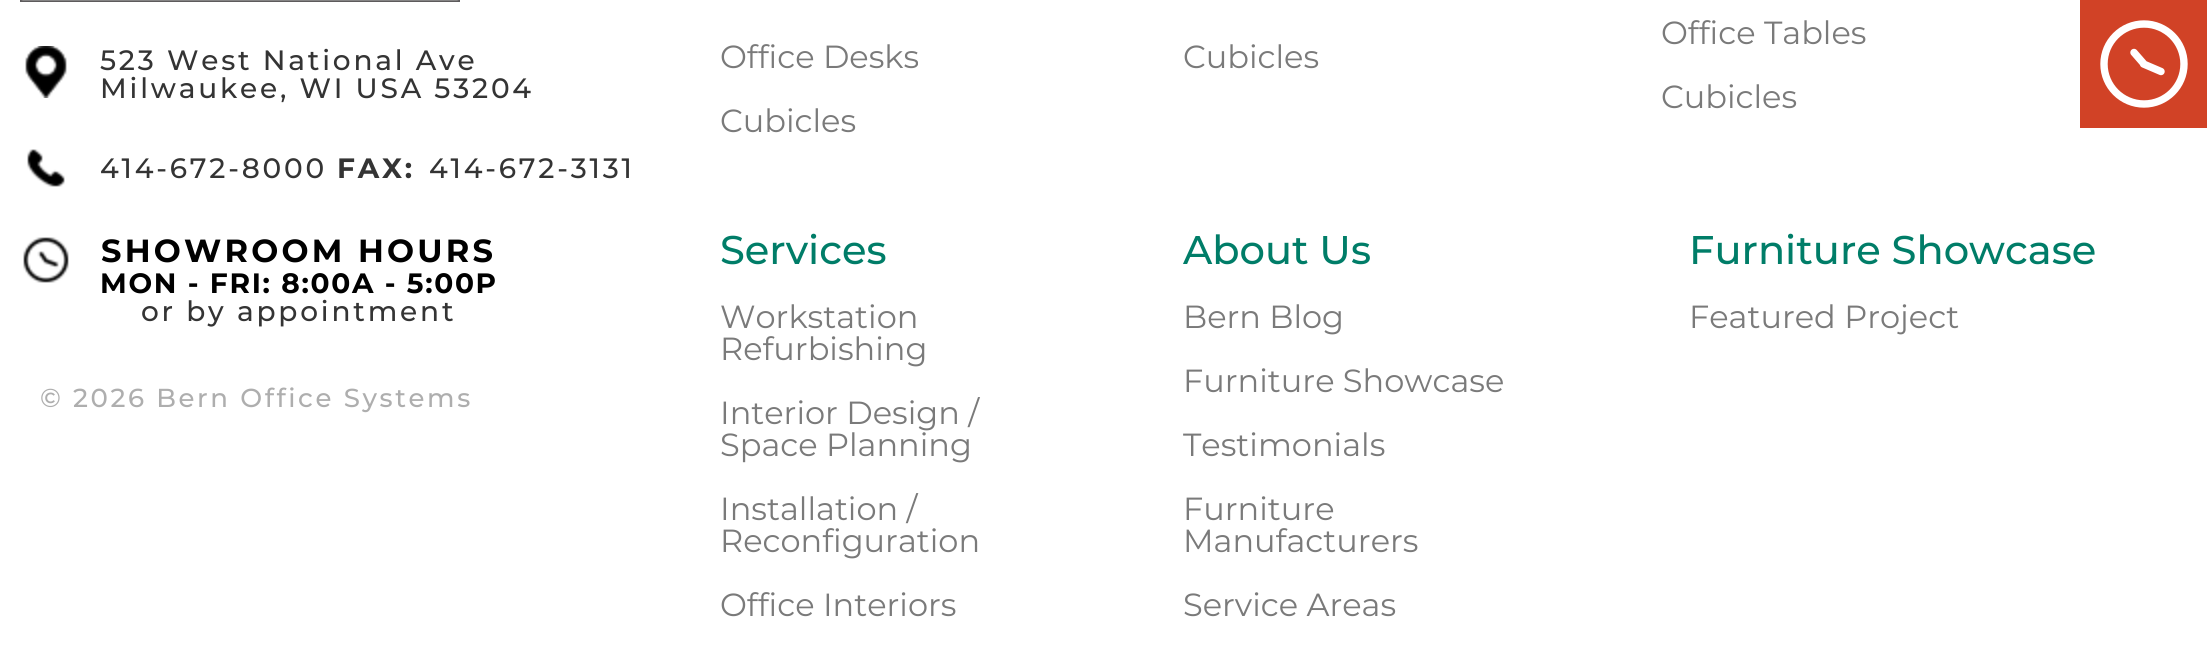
#include <cairo.h>
#include <math.h>
#include <stddef.h>


static void set_color(cairo_t *cr, unsigned color) {
    cairo_set_source_rgb(cr, (color >> 16) / 255.0, (color >> 8 & 255) / 255.0, (color & 255) / 255.0);
}

static void draw_text(cairo_t *cr, double x, double y, const char *s, const char *family, double size, int italic, int bold, unsigned color) {
    cairo_select_font_face(cr, family, italic ? CAIRO_FONT_SLANT_ITALIC : CAIRO_FONT_SLANT_NORMAL,
        bold ? CAIRO_FONT_WEIGHT_BOLD : CAIRO_FONT_WEIGHT_NORMAL);
    cairo_set_font_size(cr, size);
    set_color(cr, color);
    cairo_move_to(cr, x, y);
    cairo_show_text(cr, s);
}

static void draw_spaced(cairo_t *cr, double x, double y, const char *s, double letter, double word) {
    cairo_move_to(cr, x, y);
    while (*s) {
        char ch[5] = {0};
        int n = 0;
        do ch[n++] = *s++; while ((*s & 0xC0) == 0x80);
        cairo_show_text(cr, ch);
        cairo_rel_move_to(cr, letter + word * (*ch == ' '), 0);
    }
}

static void fill_rect(cairo_t *cr, double x, double y, double w, double h, unsigned color) {
    set_color(cr, color);
    cairo_rectangle(cr, x, y, w, h);
    cairo_fill(cr);
}

static void draw_image(cairo_t *cr, const char *path, double x, double y, double w, double h) {
    cairo_surface_t *image = cairo_image_surface_create_from_png(path);
    cairo_save(cr);
    cairo_set_source_surface(cr, image, x, y);
    cairo_rectangle(cr, x, y, w, h);
    cairo_fill(cr);
    cairo_restore(cr);
    cairo_surface_destroy(image);
}

int main(void) {
    cairo_surface_t *surface = cairo_image_surface_create(CAIRO_FORMAT_RGB24, 2207, 657);
    cairo_t *cr = cairo_create(surface);
    cairo_font_options_t *options = cairo_font_options_create();
    cairo_font_options_set_hint_metrics(options, CAIRO_HINT_METRICS_OFF);
    cairo_font_options_set_hint_style(options, CAIRO_HINT_STYLE_NONE);
    cairo_set_font_options(cr, options);
    cairo_set_miter_limit(cr, 4);
    set_color(cr, 0xFFFFFF);
    cairo_paint(cr);
    draw_image(cr, "assets/img1.png", 20, 0, 440, 2);
    draw_image(cr, "assets/img2.png", 25, 46, 42, 52);
    cairo_select_font_face(cr, "Montserrat Medium", CAIRO_FONT_SLANT_NORMAL, CAIRO_FONT_WEIGHT_NORMAL);
    cairo_set_font_size(cr, 28);
    set_color(cr, 0x343434);
    draw_spaced(cr, 100, 70, "523 West National Ave", 2.8, 0);
    draw_spaced(cr, 100, 98, "Milwaukee, WI USA 53204", 2.8, 0);
    draw_image(cr, "assets/img3.png", 27, 149, 38, 38);
    draw_spaced(cr, 100, 178, "414-672-8000", 2.8, 0);
    cairo_select_font_face(cr, "Montserrat", CAIRO_FONT_SLANT_NORMAL, CAIRO_FONT_WEIGHT_BOLD);
    draw_spaced(cr, 337, 178, "FAX:", 2.8, 0);
    cairo_select_font_face(cr, "Montserrat Medium", CAIRO_FONT_SLANT_NORMAL, CAIRO_FONT_WEIGHT_NORMAL);
    draw_spaced(cr, 429, 178, "414-672-3131", 2.8, 0);
    draw_image(cr, "assets/img4.png", 23, 237, 46, 46);
    cairo_select_font_face(cr, "Montserrat", CAIRO_FONT_SLANT_NORMAL, CAIRO_FONT_WEIGHT_BOLD);
    cairo_set_font_size(cr, 32);
    set_color(cr, 0x000000);
    draw_spaced(cr, 101, 262, "SHOWROOM HOURS", 3.25, 0);
    cairo_set_font_size(cr, 28);
    draw_spaced(cr, 100, 293, "MON - FRI: 8:00A - 5:00P", 1.7, 0);
    cairo_select_font_face(cr, "Montserrat Medium", CAIRO_FONT_SLANT_NORMAL, CAIRO_FONT_WEIGHT_NORMAL);
    set_color(cr, 0x343434);
    draw_spaced(cr, 141, 321, "or by appointment", 2.8, 0);
    cairo_set_font_size(cr, 26);
    set_color(cr, 0xAEAEAE);
    draw_spaced(cr, 40, 407, "© 2026 Bern Office Systems", 2.6, 0);
    draw_text(cr, 720, 68, "Office Desks", "Montserrat", 32, 0, 0, 0x7A7A7A);
    draw_text(cr, 720, 132, "Cubicles", "Montserrat", 32, 0, 0, 0x7A7A7A);
    draw_text(cr, 1183, 68, "Cubicles", "Montserrat", 32, 0, 0, 0x7A7A7A);
    draw_text(cr, 1661, 44, "Office Tables", "Montserrat", 32, 0, 0, 0x7A7A7A);
    draw_text(cr, 1661, 108, "Cubicles", "Montserrat", 32, 0, 0, 0x7A7A7A);
    draw_text(cr, 1689, 264, "Furniture Showcase", "Montserrat Medium", 40, 0, 0, 0x007D68);
    draw_text(cr, 1689, 328, "Featured Project", "Montserrat", 32, 0, 0, 0x7A7A7A);
    draw_text(cr, 720, 264, "Services", "Montserrat Medium", 40, 0, 0, 0x007D68);
    draw_text(cr, 720, 328, "Workstation", "Montserrat", 32, 0, 0, 0x7A7A7A);
    draw_text(cr, 720, 360, "Refurbishing", "Montserrat", 32, 0, 0, 0x7A7A7A);
    draw_text(cr, 720, 424, "Interior Design /", "Montserrat", 32, 0, 0, 0x7A7A7A);
    draw_text(cr, 720, 456, "Space Planning", "Montserrat", 32, 0, 0, 0x7A7A7A);
    draw_text(cr, 720, 520, "Installation /", "Montserrat", 32, 0, 0, 0x7A7A7A);
    draw_text(cr, 720, 552, "Reconfiguration", "Montserrat", 32, 0, 0, 0x7A7A7A);
    draw_text(cr, 720, 616, "Office Interiors", "Montserrat", 32, 0, 0, 0x7A7A7A);
    draw_text(cr, 1183, 264, "About Us", "Montserrat Medium", 40, 0, 0, 0x007D68);
    draw_text(cr, 1183, 328, "Bern Blog", "Montserrat", 32, 0, 0, 0x7A7A7A);
    draw_text(cr, 1183, 392, "Furniture Showcase", "Montserrat", 32, 0, 0, 0x7A7A7A);
    draw_text(cr, 1183, 456, "Testimonials", "Montserrat", 32, 0, 0, 0x7A7A7A);
    draw_text(cr, 1183, 520, "Furniture", "Montserrat", 32, 0, 0, 0x7A7A7A);
    draw_text(cr, 1183, 552, "Manufacturers", "Montserrat", 32, 0, 0, 0x7A7A7A);
    draw_text(cr, 1183, 616, "Service Areas", "Montserrat", 32, 0, 0, 0x7A7A7A);
    fill_rect(cr, 2080, 0, 127, 128, 0xD14226);
    cairo_new_path(cr);
    cairo_arc(cr, 2144, 64, 40, 0, 2 * M_PI);
    set_color(cr, 0xFFFFFF);
    cairo_set_line_width(cr, 7.4);
    cairo_stroke(cr);
    cairo_new_path(cr);
    cairo_move_to(cr, 2161, 71.5);
    cairo_line_to(cr, 2143.5, 64);
    cairo_move_to(cr, 2134, 52.5);
    cairo_line_to(cr, 2144, 64);
    cairo_set_line_cap(cr, CAIRO_LINE_CAP_ROUND);
    cairo_stroke(cr);
    cairo_surface_write_to_png(surface, "output.png");
    cairo_font_options_destroy(options);
    cairo_destroy(cr);
    cairo_surface_destroy(surface);
    return 0;
}
